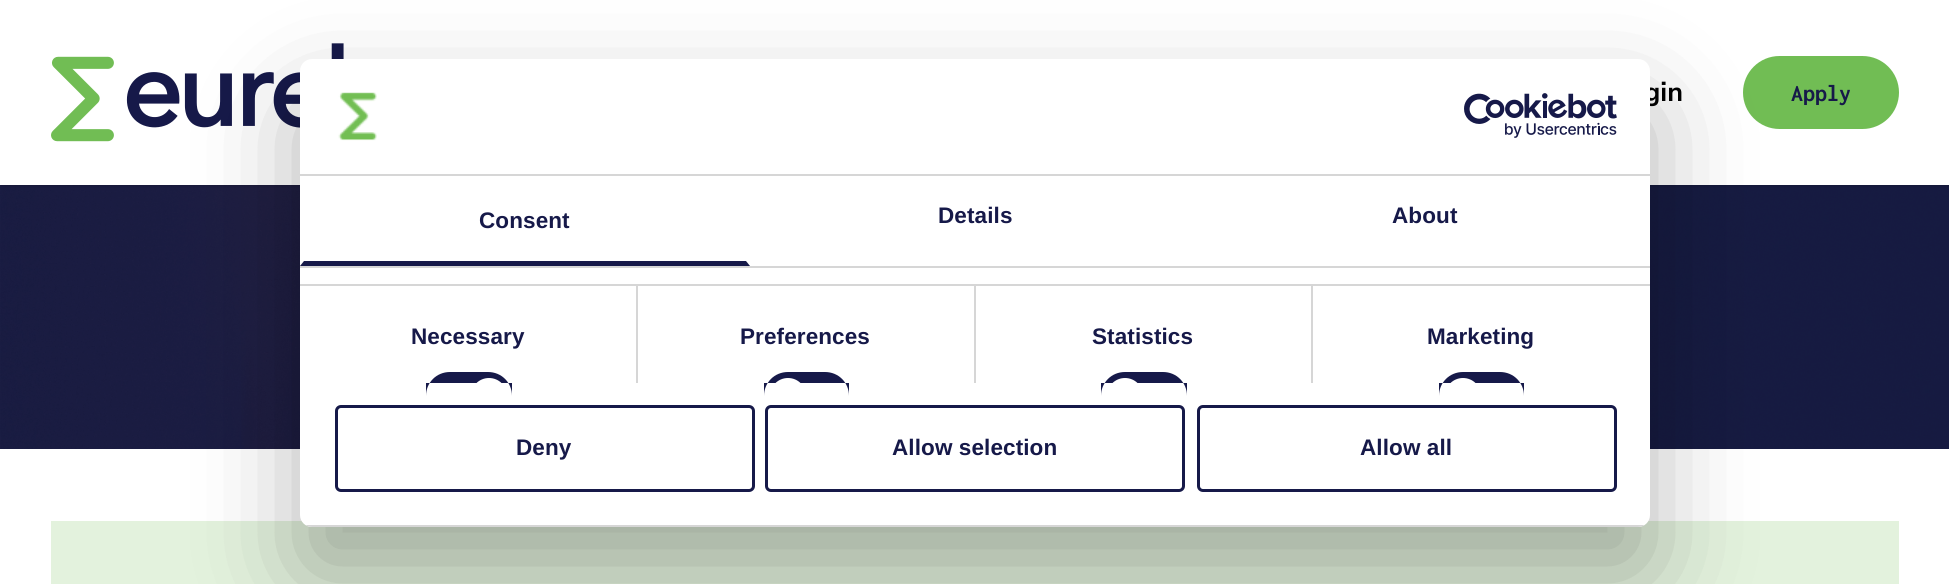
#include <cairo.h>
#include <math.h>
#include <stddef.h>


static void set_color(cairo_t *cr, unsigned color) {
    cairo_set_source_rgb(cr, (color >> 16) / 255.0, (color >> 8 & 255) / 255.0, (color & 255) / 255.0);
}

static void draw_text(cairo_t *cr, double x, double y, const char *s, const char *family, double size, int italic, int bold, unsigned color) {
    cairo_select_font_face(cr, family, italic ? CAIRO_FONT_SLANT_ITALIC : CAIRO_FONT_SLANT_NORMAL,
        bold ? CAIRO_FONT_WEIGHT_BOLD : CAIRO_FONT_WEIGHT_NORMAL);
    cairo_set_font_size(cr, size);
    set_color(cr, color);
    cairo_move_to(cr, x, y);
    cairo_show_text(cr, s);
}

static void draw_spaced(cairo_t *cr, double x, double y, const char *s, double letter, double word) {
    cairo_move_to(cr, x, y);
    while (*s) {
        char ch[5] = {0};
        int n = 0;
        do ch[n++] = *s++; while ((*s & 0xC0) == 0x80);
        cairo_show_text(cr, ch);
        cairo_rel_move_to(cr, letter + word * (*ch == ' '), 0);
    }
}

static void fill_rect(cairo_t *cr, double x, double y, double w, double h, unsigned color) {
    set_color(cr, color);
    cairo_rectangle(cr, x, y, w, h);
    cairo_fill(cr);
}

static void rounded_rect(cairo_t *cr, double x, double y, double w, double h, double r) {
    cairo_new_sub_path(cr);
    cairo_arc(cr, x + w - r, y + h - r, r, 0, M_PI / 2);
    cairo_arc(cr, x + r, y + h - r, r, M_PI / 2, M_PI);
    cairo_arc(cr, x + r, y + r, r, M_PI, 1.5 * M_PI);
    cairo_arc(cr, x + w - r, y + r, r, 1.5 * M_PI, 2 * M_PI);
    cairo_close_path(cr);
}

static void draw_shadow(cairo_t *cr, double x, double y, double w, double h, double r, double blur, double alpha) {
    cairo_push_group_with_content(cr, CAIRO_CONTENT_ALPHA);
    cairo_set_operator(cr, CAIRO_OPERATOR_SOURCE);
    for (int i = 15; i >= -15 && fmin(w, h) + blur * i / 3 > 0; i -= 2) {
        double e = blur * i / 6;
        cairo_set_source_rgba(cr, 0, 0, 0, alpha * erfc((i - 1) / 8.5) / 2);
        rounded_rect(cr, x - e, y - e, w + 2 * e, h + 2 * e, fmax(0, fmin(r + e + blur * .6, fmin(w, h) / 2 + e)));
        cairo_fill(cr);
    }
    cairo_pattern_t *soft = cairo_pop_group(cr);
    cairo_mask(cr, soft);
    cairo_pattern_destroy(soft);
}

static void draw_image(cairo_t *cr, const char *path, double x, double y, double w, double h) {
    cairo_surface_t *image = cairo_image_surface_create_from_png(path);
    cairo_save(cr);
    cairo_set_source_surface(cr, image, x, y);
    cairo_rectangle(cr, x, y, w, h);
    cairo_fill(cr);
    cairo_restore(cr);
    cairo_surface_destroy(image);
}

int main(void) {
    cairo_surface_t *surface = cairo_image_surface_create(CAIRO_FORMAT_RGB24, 1949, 584);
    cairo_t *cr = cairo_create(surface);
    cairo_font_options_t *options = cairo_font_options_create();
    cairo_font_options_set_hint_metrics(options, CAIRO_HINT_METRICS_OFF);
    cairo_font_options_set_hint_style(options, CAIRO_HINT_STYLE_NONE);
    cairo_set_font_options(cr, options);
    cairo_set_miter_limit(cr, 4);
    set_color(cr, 0xFFFFFF);
    cairo_paint(cr);
    draw_image(cr, "assets/img2.png", 0, 185, 1949, 264);
    set_color(cr, 0x000000);
    draw_shadow(cr, 2, 3, 1947, 182, 0, 1.5, 0.1);
    draw_shadow(cr, 0, 2, 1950, 184, 0, 2, 0.1);
    fill_rect(cr, 0, 0, 1949, 185, 0xFFFFFF);
    draw_image(cr, "assets/img1.png", 51, 43, 293, 99);
    draw_text(cr, 1644, 101, "gin", "Nunito Sans", 27, 0, 1, 0x000000);
    set_color(cr, 0x71BD54);
    rounded_rect(cr, 1743, 56, 156, 73, 36.5);
    cairo_fill(cr);
    draw_text(cr, 1791, 101, "Apply", "Inconsolata", 24, 0, 1, 0x161949);
    fill_rect(cr, 51, 521, 1848, 63, 0xE3F2DD);
    set_color(cr, 0x000000);
    draw_shadow(cr, 300, 107, 1350, 468, 12, 51, 0.3);
    set_color(cr, 0xFFFFFF);
    rounded_rect(cr, 300, 59, 1350, 468, 12);
    cairo_fill(cr);
    fill_rect(cr, 300, 174, 1350, 2, 0xD6D6D6);
    draw_image(cr, "assets/img3.png", 338, 92, 39, 49);
    draw_image(cr, "assets/img4.png", 1464, 93, 153, 45);
    fill_rect(cr, 300, 266, 1350, 2, 0xD6D6D6);
    set_color(cr, 0x161949);
    cairo_new_path(cr);
    cairo_move_to(cr, 750, 266);
    cairo_line_to(cr, 300, 266);
    cairo_line_to(cr, 304, 261);
    cairo_line_to(cr, 746, 261);
    cairo_close_path(cr);
    cairo_fill(cr);
    cairo_select_font_face(cr, "Liberation Sans", CAIRO_FONT_SLANT_NORMAL, CAIRO_FONT_WEIGHT_BOLD);
    cairo_set_font_size(cr, 22.5);
    draw_spaced(cr, 479, 228, "Consent", 0.1, 0);
    draw_spaced(cr, 938, 223, "Details", 0.1, 0);
    draw_spaced(cr, 1392, 223, "About", 0.1, 0);
    fill_rect(cr, 636, 285, 2, 98, 0xD6D6D6);
    fill_rect(cr, 974, 285, 2, 98, 0xD6D6D6);
    fill_rect(cr, 1311, 285, 2, 98, 0xD6D6D6);
    fill_rect(cr, 300, 284, 1350, 2, 0xD6D6D6);
    set_color(cr, 0x161949);
    draw_spaced(cr, 411, 344, "Necessary", 0.1, 0);
    cairo_new_path(cr);
    cairo_move_to(cr, 450, 372);
    cairo_line_to(cr, 488, 372);
    cairo_curve_to(cr, 501.5, 372, 512, 382.5, 512, 396);
    cairo_line_to(cr, 512, 383);
    cairo_line_to(cr, 426, 383);
    cairo_line_to(cr, 426, 396);
    cairo_curve_to(cr, 426, 382.5, 436.5, 372, 450, 372);
    cairo_close_path(cr);
    cairo_fill(cr);
    set_color(cr, 0xFFFFFF);
    cairo_new_path(cr);
    cairo_move_to(cr, 489, 378);
    cairo_curve_to(cr, 499, 378, 507, 386, 507, 396);
    cairo_line_to(cr, 507, 383);
    cairo_line_to(cr, 471, 383);
    cairo_line_to(cr, 471, 396);
    cairo_curve_to(cr, 471, 386, 479, 378, 489, 378);
    cairo_close_path(cr);
    cairo_fill(cr);
    set_color(cr, 0x161949);
    draw_spaced(cr, 740, 344, "Preferences", 0.1, 0);
    cairo_new_path(cr);
    cairo_move_to(cr, 788, 372);
    cairo_line_to(cr, 825, 372);
    cairo_curve_to(cr, 838.5, 372, 849, 382.5, 849, 396);
    cairo_line_to(cr, 849, 383);
    cairo_line_to(cr, 764, 383);
    cairo_line_to(cr, 764, 396);
    cairo_curve_to(cr, 764, 382.5, 774.5, 372, 788, 372);
    cairo_close_path(cr);
    cairo_fill(cr);
    set_color(cr, 0xFFFFFF);
    cairo_new_path(cr);
    cairo_move_to(cr, 788, 378);
    cairo_curve_to(cr, 798, 378, 806, 386, 806, 396);
    cairo_line_to(cr, 806, 383);
    cairo_line_to(cr, 770, 383);
    cairo_line_to(cr, 770, 396);
    cairo_curve_to(cr, 770, 386, 778, 378, 788, 378);
    cairo_close_path(cr);
    cairo_fill(cr);
    set_color(cr, 0x161949);
    draw_spaced(cr, 1092, 344, "Statistics", 0.1, 0);
    cairo_new_path(cr);
    cairo_move_to(cr, 1125, 372);
    cairo_line_to(cr, 1163, 372);
    cairo_curve_to(cr, 1176.5, 372, 1187, 382.5, 1187, 396);
    cairo_line_to(cr, 1187, 383);
    cairo_line_to(cr, 1101, 383);
    cairo_line_to(cr, 1101, 396);
    cairo_curve_to(cr, 1101, 382.5, 1111.5, 372, 1125, 372);
    cairo_close_path(cr);
    cairo_fill(cr);
    set_color(cr, 0xFFFFFF);
    cairo_new_path(cr);
    cairo_move_to(cr, 1125, 378);
    cairo_curve_to(cr, 1135, 378, 1143, 386, 1143, 396);
    cairo_line_to(cr, 1143, 383);
    cairo_line_to(cr, 1107, 383);
    cairo_line_to(cr, 1107, 396);
    cairo_curve_to(cr, 1107, 386, 1115, 378, 1125, 378);
    cairo_close_path(cr);
    cairo_fill(cr);
    set_color(cr, 0x161949);
    draw_spaced(cr, 1427, 344, "Marketing", 0.1, 0);
    cairo_new_path(cr);
    cairo_move_to(cr, 1463, 372);
    cairo_line_to(cr, 1500, 372);
    cairo_curve_to(cr, 1513.5, 372, 1524, 382.5, 1524, 396);
    cairo_line_to(cr, 1524, 383);
    cairo_line_to(cr, 1439, 383);
    cairo_line_to(cr, 1439, 396);
    cairo_curve_to(cr, 1439, 382.5, 1449.5, 372, 1463, 372);
    cairo_close_path(cr);
    cairo_fill(cr);
    set_color(cr, 0xFFFFFF);
    cairo_new_path(cr);
    cairo_move_to(cr, 1463, 378);
    cairo_curve_to(cr, 1473, 378, 1481, 386, 1481, 396);
    cairo_line_to(cr, 1481, 383);
    cairo_line_to(cr, 1445, 383);
    cairo_line_to(cr, 1445, 396);
    cairo_curve_to(cr, 1445, 386, 1453, 378, 1463, 378);
    cairo_close_path(cr);
    cairo_fill(cr);
    cairo_save(cr);
    rounded_rect(cr, 300, 59, 1350, 468, 12);
    cairo_clip(cr);
    fill_rect(cr, 300, 525, 1350, 2, 0xD6D6D6);
    cairo_restore(cr);
    rounded_rect(cr, 336.5, 406.5, 417, 84, 4.5);
    set_color(cr, 0x161949);
    cairo_set_line_width(cr, 3);
    cairo_stroke(cr);
    draw_spaced(cr, 516, 455, "Deny", 0.1, 0);
    rounded_rect(cr, 766.5, 406.5, 417, 84, 4.5);
    cairo_stroke(cr);
    draw_spaced(cr, 892, 455, "Allow selection", 0.1, 0);
    rounded_rect(cr, 1198.5, 406.5, 417, 84, 4.5);
    cairo_stroke(cr);
    draw_spaced(cr, 1360, 455, "Allow all", 0.1, 0);
    cairo_surface_write_to_png(surface, "output.png");
    cairo_font_options_destroy(options);
    cairo_destroy(cr);
    cairo_surface_destroy(surface);
    return 0;
}
